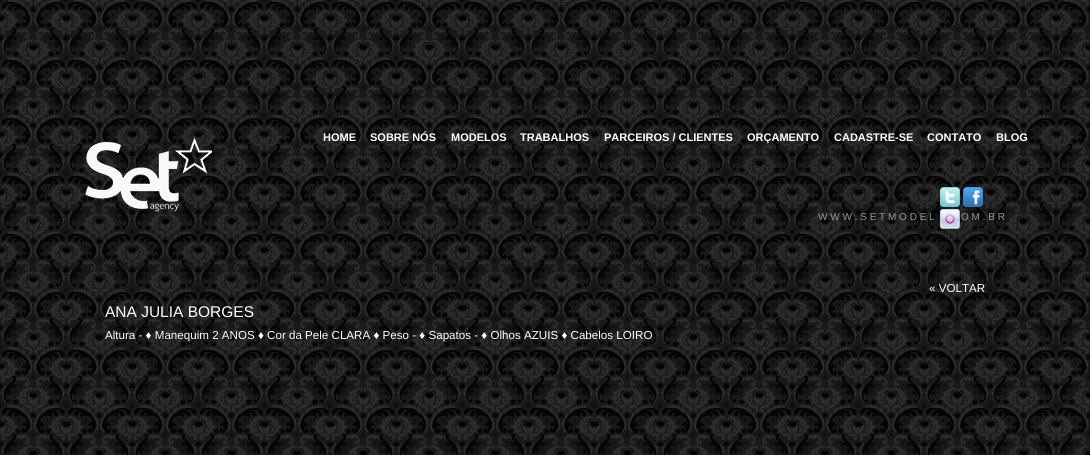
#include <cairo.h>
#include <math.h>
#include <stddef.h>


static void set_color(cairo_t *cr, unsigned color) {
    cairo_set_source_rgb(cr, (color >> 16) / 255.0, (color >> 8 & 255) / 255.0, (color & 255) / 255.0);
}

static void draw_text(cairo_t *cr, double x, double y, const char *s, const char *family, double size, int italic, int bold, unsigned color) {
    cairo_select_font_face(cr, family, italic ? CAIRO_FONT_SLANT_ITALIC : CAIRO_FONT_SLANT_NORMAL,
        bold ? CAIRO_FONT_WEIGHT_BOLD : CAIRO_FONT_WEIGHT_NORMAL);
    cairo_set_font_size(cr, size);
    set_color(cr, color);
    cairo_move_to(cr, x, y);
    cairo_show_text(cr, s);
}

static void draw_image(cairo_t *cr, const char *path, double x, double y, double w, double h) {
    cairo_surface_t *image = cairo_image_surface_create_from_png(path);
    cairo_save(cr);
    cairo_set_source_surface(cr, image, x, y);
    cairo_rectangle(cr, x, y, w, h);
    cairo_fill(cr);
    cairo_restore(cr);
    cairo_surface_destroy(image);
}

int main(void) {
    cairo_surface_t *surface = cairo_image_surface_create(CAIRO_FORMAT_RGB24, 1090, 455);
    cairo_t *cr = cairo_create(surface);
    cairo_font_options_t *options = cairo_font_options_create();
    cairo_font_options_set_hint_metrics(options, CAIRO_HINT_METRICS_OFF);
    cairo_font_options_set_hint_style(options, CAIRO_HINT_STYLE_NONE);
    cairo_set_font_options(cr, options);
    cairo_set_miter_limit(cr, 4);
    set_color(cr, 0xFFFFFF);
    cairo_paint(cr);
    draw_image(cr, "assets/img1.png", 0, 0, 1090, 455);
    draw_image(cr, "assets/img2.png", 85, 137, 127, 75);
    draw_text(cr, 323, 141, "HOME", "Liberation Sans", 11, 0, 1, 0xFFFFFF);
    draw_text(cr, 370, 141, "SOBRE NÓS", "Liberation Sans", 11, 0, 1, 0xFFFFFF);
    draw_text(cr, 451, 141, "MODELOS", "Liberation Sans", 11, 0, 1, 0xFFFFFF);
    draw_text(cr, 520, 141, "TRABALHOS", "Liberation Sans", 11, 0, 1, 0xFFFFFF);
    draw_text(cr, 604, 141, "PARCEIROS / CLIENTES", "Liberation Sans", 11, 0, 1, 0xFFFFFF);
    draw_text(cr, 747, 141, "ORÇAMENTO", "Liberation Sans", 11, 0, 1, 0xFFFFFF);
    draw_text(cr, 834, 141, "CADASTRE-SE", "Liberation Sans", 11, 0, 1, 0xFFFFFF);
    draw_text(cr, 927, 141, "CONTATO", "Liberation Sans", 11, 0, 1, 0xFFFFFF);
    draw_text(cr, 996, 141, "BLOG", "Liberation Sans", 11, 0, 1, 0xFFFFFF);
    draw_text(cr, 818, 220, "W W W . S E T M O D E L", "Liberation Sans", 10, 0, 0, 0x949495);
    draw_image(cr, "assets/img3.png", 940, 187, 20, 20);
    draw_image(cr, "assets/img4.png", 963, 187, 20, 20);
    draw_image(cr, "assets/img5.png", 940, 209, 20, 20);
    draw_text(cr, 961, 220, "O M . B R", "Liberation Sans", 10, 0, 0, 0x949495);
    draw_text(cr, 929, 292, "« VOLTAR", "Liberation Sans", 11.6, 0, 0, 0xFFFFFF);
    draw_text(cr, 105, 317, "ANA JULIA BORGES", "Liberation Sans", 15.5, 0, 0, 0xFFFFFF);
    draw_text(cr, 105, 339, "Altura - ♦ Manequim 2 ANOS ♦ Cor da Pele CLARA ♦ Peso - ♦ Sapatos - ♦ Olhos AZUIS ♦ Cabelos LOIRO", "Liberation Sans", 11.6, 0, 0, 0xFFFFFF);
    cairo_surface_write_to_png(surface, "output.png");
    cairo_font_options_destroy(options);
    cairo_destroy(cr);
    cairo_surface_destroy(surface);
    return 0;
}
